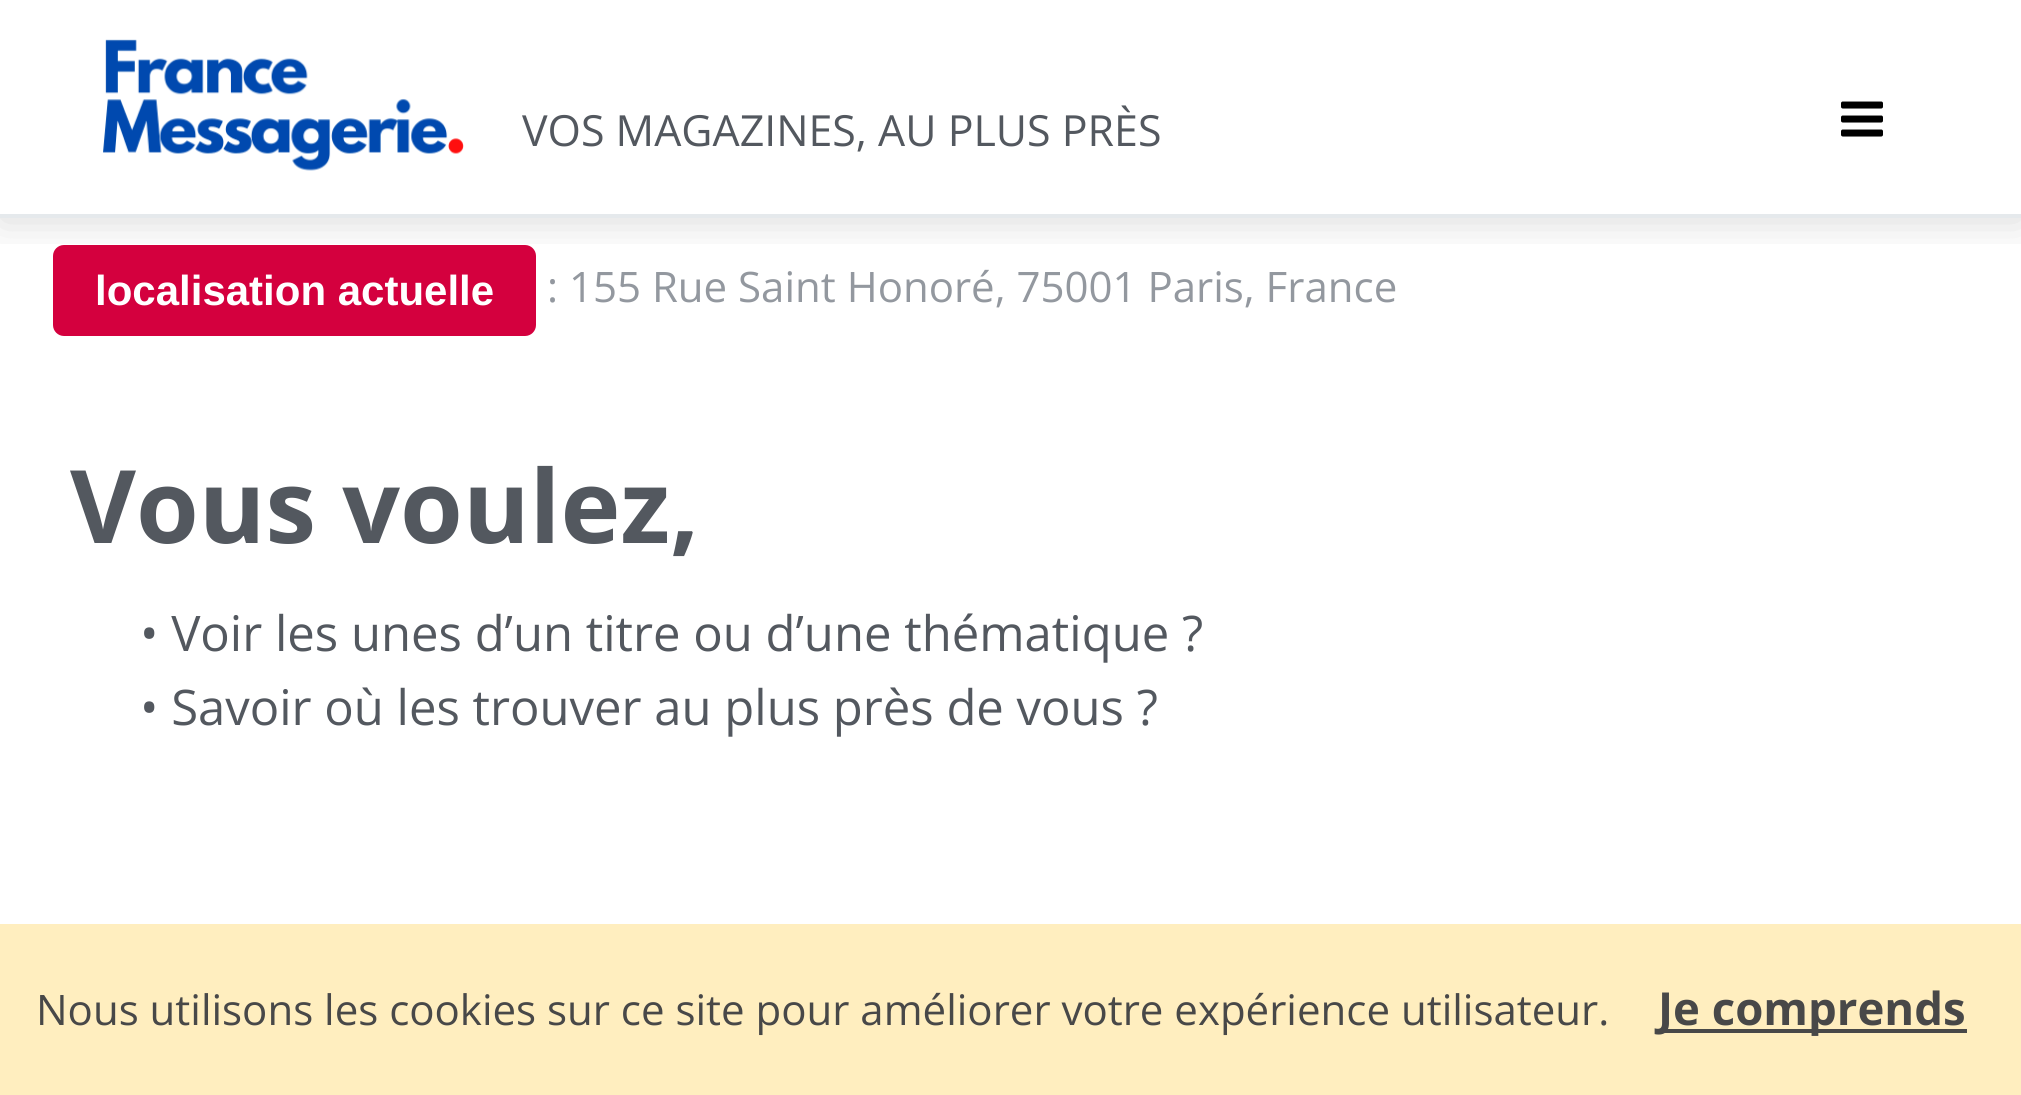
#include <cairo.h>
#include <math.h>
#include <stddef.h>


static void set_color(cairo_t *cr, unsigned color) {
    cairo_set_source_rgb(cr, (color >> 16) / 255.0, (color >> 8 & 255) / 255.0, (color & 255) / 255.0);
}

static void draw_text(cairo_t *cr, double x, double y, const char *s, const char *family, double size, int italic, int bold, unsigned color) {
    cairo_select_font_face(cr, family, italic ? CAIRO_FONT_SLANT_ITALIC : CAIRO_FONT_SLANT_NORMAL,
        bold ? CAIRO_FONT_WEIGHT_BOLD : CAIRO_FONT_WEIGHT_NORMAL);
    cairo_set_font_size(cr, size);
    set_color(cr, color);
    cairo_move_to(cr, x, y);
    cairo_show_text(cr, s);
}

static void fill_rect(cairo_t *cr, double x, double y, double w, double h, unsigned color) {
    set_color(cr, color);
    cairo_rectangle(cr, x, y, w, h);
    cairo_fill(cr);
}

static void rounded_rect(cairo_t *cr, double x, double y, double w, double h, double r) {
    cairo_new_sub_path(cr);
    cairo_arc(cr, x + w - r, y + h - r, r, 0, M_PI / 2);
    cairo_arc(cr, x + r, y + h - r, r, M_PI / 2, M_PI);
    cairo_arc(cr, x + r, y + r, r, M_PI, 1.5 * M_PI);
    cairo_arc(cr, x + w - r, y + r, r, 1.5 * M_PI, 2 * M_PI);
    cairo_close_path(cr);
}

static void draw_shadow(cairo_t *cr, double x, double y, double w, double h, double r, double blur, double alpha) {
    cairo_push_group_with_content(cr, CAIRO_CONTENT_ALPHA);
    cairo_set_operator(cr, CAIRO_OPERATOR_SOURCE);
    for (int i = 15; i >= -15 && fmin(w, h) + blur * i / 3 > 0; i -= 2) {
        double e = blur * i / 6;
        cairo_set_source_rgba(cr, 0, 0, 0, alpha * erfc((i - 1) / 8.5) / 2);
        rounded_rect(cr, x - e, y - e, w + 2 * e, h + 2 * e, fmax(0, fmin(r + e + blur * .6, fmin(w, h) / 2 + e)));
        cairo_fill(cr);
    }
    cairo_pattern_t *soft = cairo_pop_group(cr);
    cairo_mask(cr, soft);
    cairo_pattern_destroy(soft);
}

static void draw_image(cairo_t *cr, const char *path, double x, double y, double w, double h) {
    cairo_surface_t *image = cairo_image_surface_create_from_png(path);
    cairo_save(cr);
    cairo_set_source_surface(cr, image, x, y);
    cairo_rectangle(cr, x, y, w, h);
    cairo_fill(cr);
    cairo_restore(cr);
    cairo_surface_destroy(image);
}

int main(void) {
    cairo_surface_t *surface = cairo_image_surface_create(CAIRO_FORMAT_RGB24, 2021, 1095);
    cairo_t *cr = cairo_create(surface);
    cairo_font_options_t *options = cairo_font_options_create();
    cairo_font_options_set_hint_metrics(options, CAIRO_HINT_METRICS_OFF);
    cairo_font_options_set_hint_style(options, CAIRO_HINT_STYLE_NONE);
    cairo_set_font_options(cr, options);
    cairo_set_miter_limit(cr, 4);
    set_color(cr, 0xFFFFFF);
    cairo_paint(cr);
    set_color(cr, 0xD4003E);
    rounded_rect(cr, 53, 245, 483, 91, 11);
    cairo_fill(cr);
    cairo_save(cr);
    cairo_rectangle(cr, 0, 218, 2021, 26);
    cairo_clip(cr);
    set_color(cr, 0x000000);
    draw_shadow(cr, 0, 4, 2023, 217, 0, 21, 0.15);
    cairo_restore(cr);
    fill_rect(cr, 0, 214, 2021, 4, 0xE5E9EC);
    draw_image(cr, "assets/img1.png", 103, 39, 361, 132);
    draw_text(cr, 522, 146, "VOS MAGAZINES, AU PLUS PRÈS", "Open Sans", 42.9, 0, 0, 0x53585F);
    draw_image(cr, "assets/img2.png", 1841, 101, 42, 36);
    draw_text(cr, 95, 305, "localisation actuelle", "Liberation Sans", 42, 0, 1, 0xFFFFFF);
    draw_text(cr, 547, 302, ": 155 Rue Saint Honoré, 75001 Paris, France", "Open Sans", 42, 0, 0, 0x93989F);
    draw_text(cr, 70, 543, "Vous voulez,", "Open Sans", 101.5, 0, 1, 0x53585F);
    draw_text(cr, 140, 651, "• Voir les unes d’un titre ou d’une thématique ?", "Open Sans", 49, 0, 0, 0x53585F);
    draw_text(cr, 140, 725, "• Savoir où les trouver au plus près de vous ?", "Open Sans", 49, 0, 0, 0x53585F);
    fill_rect(cr, 0, 924, 2021, 171, 0xFFEEBF);
    draw_text(cr, 36, 1025, "Nous utilisons les cookies sur ce site pour améliorer votre expérience utilisateur.", "Open Sans", 42, 0, 0, 0x484848);
    fill_rect(cr, 1659, 1029, 308, 4, 0x484848);
    draw_text(cr, 1658, 1025, "Je comprends", "Open Sans", 45.5, 0, 1, 0x484848);
    cairo_surface_write_to_png(surface, "output.png");
    cairo_font_options_destroy(options);
    cairo_destroy(cr);
    cairo_surface_destroy(surface);
    return 0;
}
